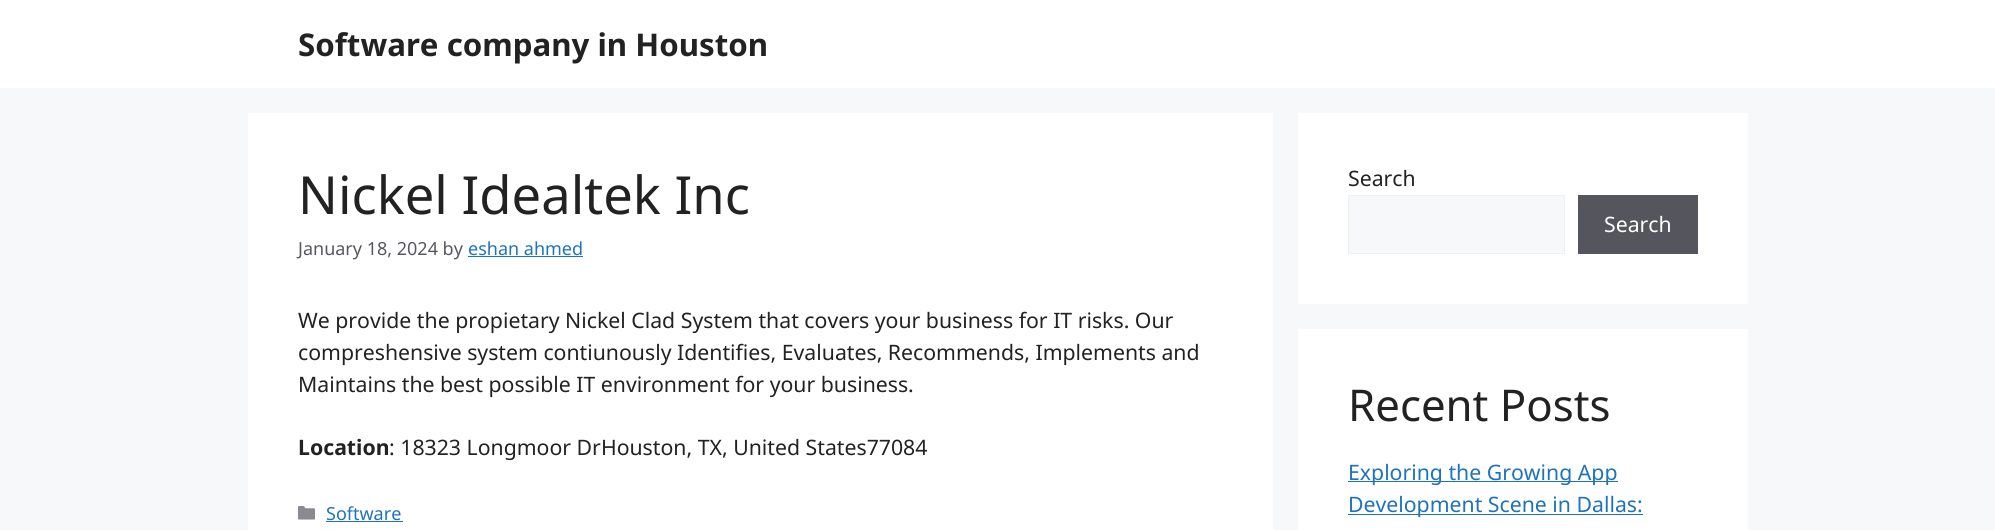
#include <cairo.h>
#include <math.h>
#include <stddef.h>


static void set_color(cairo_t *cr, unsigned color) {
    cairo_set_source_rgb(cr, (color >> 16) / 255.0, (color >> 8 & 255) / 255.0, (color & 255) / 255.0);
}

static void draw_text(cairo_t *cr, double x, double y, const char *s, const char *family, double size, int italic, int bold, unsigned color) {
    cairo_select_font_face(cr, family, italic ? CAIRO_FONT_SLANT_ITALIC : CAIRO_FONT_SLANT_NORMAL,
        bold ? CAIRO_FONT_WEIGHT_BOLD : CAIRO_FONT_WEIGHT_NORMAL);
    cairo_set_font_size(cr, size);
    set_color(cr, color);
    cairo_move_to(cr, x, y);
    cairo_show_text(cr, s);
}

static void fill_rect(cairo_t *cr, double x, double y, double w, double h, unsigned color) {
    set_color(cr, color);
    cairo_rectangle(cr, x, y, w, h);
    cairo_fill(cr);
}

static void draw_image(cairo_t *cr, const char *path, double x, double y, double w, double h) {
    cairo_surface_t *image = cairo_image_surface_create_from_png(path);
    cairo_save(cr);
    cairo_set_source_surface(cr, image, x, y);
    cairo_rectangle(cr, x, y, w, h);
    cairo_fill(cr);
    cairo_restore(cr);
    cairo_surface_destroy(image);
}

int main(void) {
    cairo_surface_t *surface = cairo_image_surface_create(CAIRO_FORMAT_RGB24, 1995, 530);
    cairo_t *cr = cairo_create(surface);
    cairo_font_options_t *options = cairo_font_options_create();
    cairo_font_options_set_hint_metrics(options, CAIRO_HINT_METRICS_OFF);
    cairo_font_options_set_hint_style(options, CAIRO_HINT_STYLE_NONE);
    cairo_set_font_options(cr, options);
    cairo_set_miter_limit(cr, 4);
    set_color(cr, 0xF7F8F9);
    cairo_paint(cr);
    fill_rect(cr, 0, 0, 1995, 88, 0xFFFFFF);
    draw_text(cr, 298, 56, "Software company in Houston", "Noto Sans", 31.25, 0, 1, 0x222222);
    fill_rect(cr, 248, 113, 1025, 417, 0xFFFFFF);
    draw_text(cr, 298, 214, "Nickel Idealtek Inc", "Noto Sans", 52.5, 0, 0, 0x222222);
    draw_text(cr, 298, 255, "January 18, 2024 by", "Noto Sans", 18, 0, 0, 0x575760);
    draw_text(cr, 468, 255, "eshan ahmed", "Noto Sans", 18, 0, 0, 0x1E73BE);
    fill_rect(cr, 468, 256, 115, 1, 0x1E73BE);
    draw_text(cr, 298, 328, "We provide the propietary Nickel Clad System that covers your business for IT risks. Our", "Noto Sans", 21.25, 0, 0, 0x222222);
    draw_text(cr, 298, 360, "compreshensive system contiunously Identifies, Evaluates, Recommends, Implements and", "Noto Sans", 21.25, 0, 0, 0x222222);
    draw_text(cr, 298, 392, "Maintains the best possible IT environment for your business.", "Noto Sans", 21.25, 0, 0, 0x222222);
    draw_text(cr, 298, 455, "Location", "Noto Sans", 21.25, 0, 1, 0x222222);
    draw_text(cr, 389, 455, ": 18323 Longmoor DrHouston, TX, United States77084", "Noto Sans", 21.25, 0, 0, 0x222222);
    draw_image(cr, "assets/img1.png", 298, 506, 17, 14);
    draw_text(cr, 326, 520, "Software", "Noto Sans", 18, 0, 0, 0x1E73BE);
    fill_rect(cr, 326, 521, 77, 1, 0x1E73BE);
    fill_rect(cr, 1298, 113, 450, 191, 0xFFFFFF);
    draw_text(cr, 1348, 186, "Search", "Noto Sans", 21.25, 0, 0, 0x222222);
    set_color(cr, 0xF7F8F9);
    cairo_rectangle(cr, 1348.5, 195.5, 216, 58);
    cairo_fill_preserve(cr);
    set_color(cr, 0xF0F0F0);
    cairo_set_line_width(cr, 1);
    cairo_stroke(cr);
    fill_rect(cr, 1578, 195, 120, 59, 0x55555E);
    draw_text(cr, 1604, 232, "Search", "Noto Sans", 21.25, 0, 0, 0xFFFFFF);
    fill_rect(cr, 1298, 329, 450, 201, 0xFFFFFF);
    draw_text(cr, 1348, 421, "Recent Posts", "Noto Sans", 43.75, 0, 0, 0x222222);
    fill_rect(cr, 1348, 481, 270, 1, 0x1E73BE);
    draw_text(cr, 1348, 480, "Exploring the Growing App", "Noto Sans", 21.25, 0, 0, 0x1E73BE);
    fill_rect(cr, 1348, 514, 295, 1, 0x1E73BE);
    draw_text(cr, 1348, 512, "Development Scene in Dallas:", "Noto Sans", 21.25, 0, 0, 0x1E73BE);
    cairo_surface_write_to_png(surface, "output.png");
    cairo_font_options_destroy(options);
    cairo_destroy(cr);
    cairo_surface_destroy(surface);
    return 0;
}
